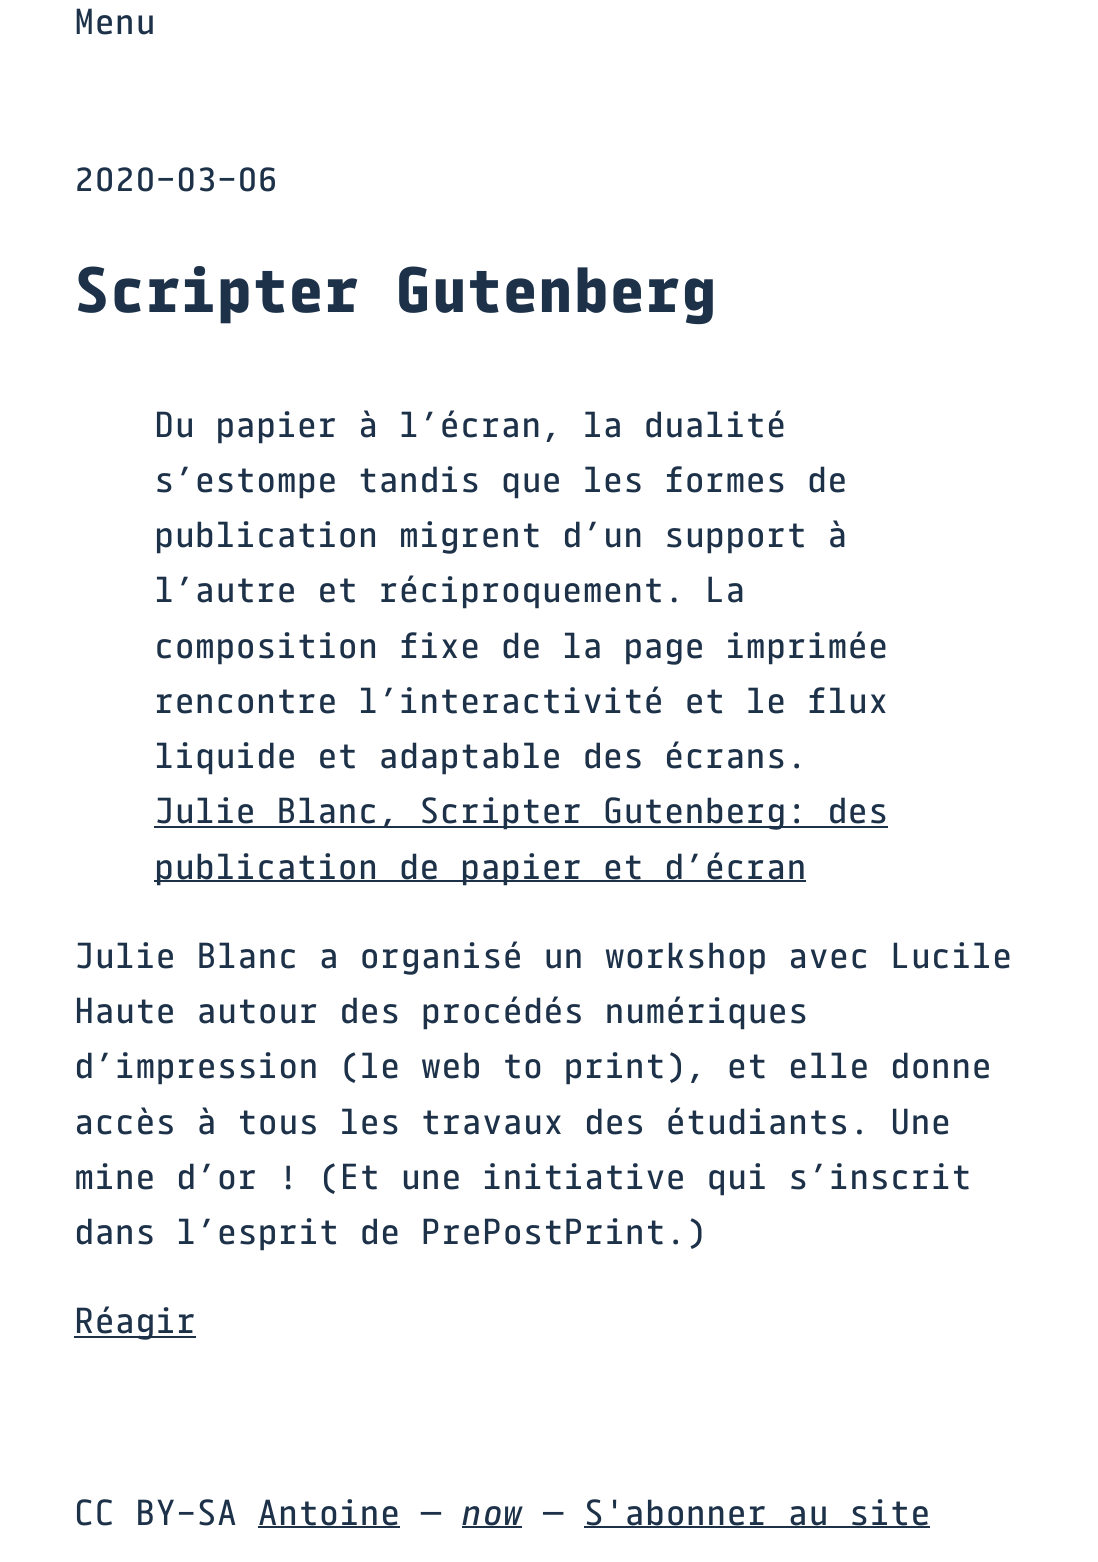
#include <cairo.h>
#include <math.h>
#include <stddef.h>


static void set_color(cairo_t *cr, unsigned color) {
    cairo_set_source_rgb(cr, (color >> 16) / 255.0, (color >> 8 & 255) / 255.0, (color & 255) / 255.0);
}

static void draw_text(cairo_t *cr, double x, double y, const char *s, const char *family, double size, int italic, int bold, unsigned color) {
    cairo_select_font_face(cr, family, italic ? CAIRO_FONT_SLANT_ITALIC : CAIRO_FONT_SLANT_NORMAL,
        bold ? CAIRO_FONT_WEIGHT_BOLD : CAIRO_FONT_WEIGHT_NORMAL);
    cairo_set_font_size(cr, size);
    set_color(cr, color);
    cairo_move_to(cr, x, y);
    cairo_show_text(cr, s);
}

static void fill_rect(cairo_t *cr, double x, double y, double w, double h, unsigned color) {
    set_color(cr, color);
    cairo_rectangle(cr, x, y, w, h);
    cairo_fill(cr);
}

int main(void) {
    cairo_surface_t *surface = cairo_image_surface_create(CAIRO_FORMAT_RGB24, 1098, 1562);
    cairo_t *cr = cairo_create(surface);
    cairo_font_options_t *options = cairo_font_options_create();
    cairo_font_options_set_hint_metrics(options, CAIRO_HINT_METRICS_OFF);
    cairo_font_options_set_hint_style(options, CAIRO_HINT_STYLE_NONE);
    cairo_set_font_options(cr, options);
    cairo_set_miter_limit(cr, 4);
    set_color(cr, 0xFFFFFF);
    cairo_paint(cr);
    draw_text(cr, 74, 34, "Menu", "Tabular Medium", 34, 0, 0, 0x1D3249);
    draw_text(cr, 74, 191, "2020-03-06", "Tabular Medium", 34, 0, 0, 0x1D3249);
    draw_text(cr, 74, 312, "Scripter Gutenberg", "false", 59.5, 0, 1, 0x1D3249);
    draw_text(cr, 154, 437, "Du papier à l’écran, la dualité", "Tabular Medium", 34, 0, 0, 0x1D3249);
    draw_text(cr, 154, 492, "s’estompe tandis que les formes de", "Tabular Medium", 34, 0, 0, 0x1D3249);
    draw_text(cr, 154, 547, "publication migrent d’un support à", "Tabular Medium", 34, 0, 0, 0x1D3249);
    draw_text(cr, 154, 602, "l’autre et réciproquement. La", "Tabular Medium", 34, 0, 0, 0x1D3249);
    draw_text(cr, 154, 658, "composition fixe de la page imprimée", "Tabular Medium", 34, 0, 0, 0x1D3249);
    draw_text(cr, 154, 713, "rencontre l’interactivité et le flux", "Tabular Medium", 34, 0, 0, 0x1D3249);
    draw_text(cr, 154, 768, "liquide et adaptable des écrans.", "Tabular Medium", 34, 0, 0, 0x1D3249);
    fill_rect(cr, 154, 826, 734, 2, 0x1D3249);
    draw_text(cr, 154, 823, "Julie Blanc, Scripter Gutenberg: des", "Tabular Medium", 34, 0, 0, 0x1D3249);
    fill_rect(cr, 154, 880, 652, 2, 0x1D3249);
    draw_text(cr, 154, 879, "publication de papier et d’écran", "Tabular Medium", 34, 0, 0, 0x1D3249);
    draw_text(cr, 74, 968, "Julie Blanc a organisé un workshop avec Lucile", "Tabular Medium", 34, 0, 0, 0x1D3249);
    draw_text(cr, 74, 1023, "Haute autour des procédés numériques", "Tabular Medium", 34, 0, 0, 0x1D3249);
    draw_text(cr, 74, 1078, "d’impression (le web to print), et elle donne", "Tabular Medium", 34, 0, 0, 0x1D3249);
    draw_text(cr, 74, 1134, "accès à tous les travaux des étudiants. Une", "Tabular Medium", 34, 0, 0, 0x1D3249);
    draw_text(cr, 74, 1189, "mine d’or ! (Et une initiative qui s’inscrit", "Tabular Medium", 34, 0, 0, 0x1D3249);
    draw_text(cr, 74, 1244, "dans l’esprit de PrePostPrint.)", "Tabular Medium", 34, 0, 0, 0x1D3249);
    fill_rect(cr, 74, 1336, 122, 2, 0x1D3249);
    draw_text(cr, 74, 1333, "Réagir", "Tabular Medium", 34, 0, 0, 0x1D3249);
    draw_text(cr, 74, 1525, "CC BY-SA Antoine —", "Tabular Medium", 34, 0, 0, 0x1D3249);
    draw_text(cr, 462, 1525, "now", "Tabular Medium", 34, 1, 0, 0x1D3249);
    fill_rect(cr, 462, 1526, 60, 2, 0x1D3249);
    draw_text(cr, 543, 1525, "— S'abonner au site", "Tabular Medium", 34, 0, 0, 0x1D3249);
    fill_rect(cr, 258, 1526, 142, 2, 0x1D3249);
    fill_rect(cr, 584, 1526, 346, 2, 0x1D3249);
    cairo_surface_write_to_png(surface, "output.png");
    cairo_font_options_destroy(options);
    cairo_destroy(cr);
    cairo_surface_destroy(surface);
    return 0;
}
